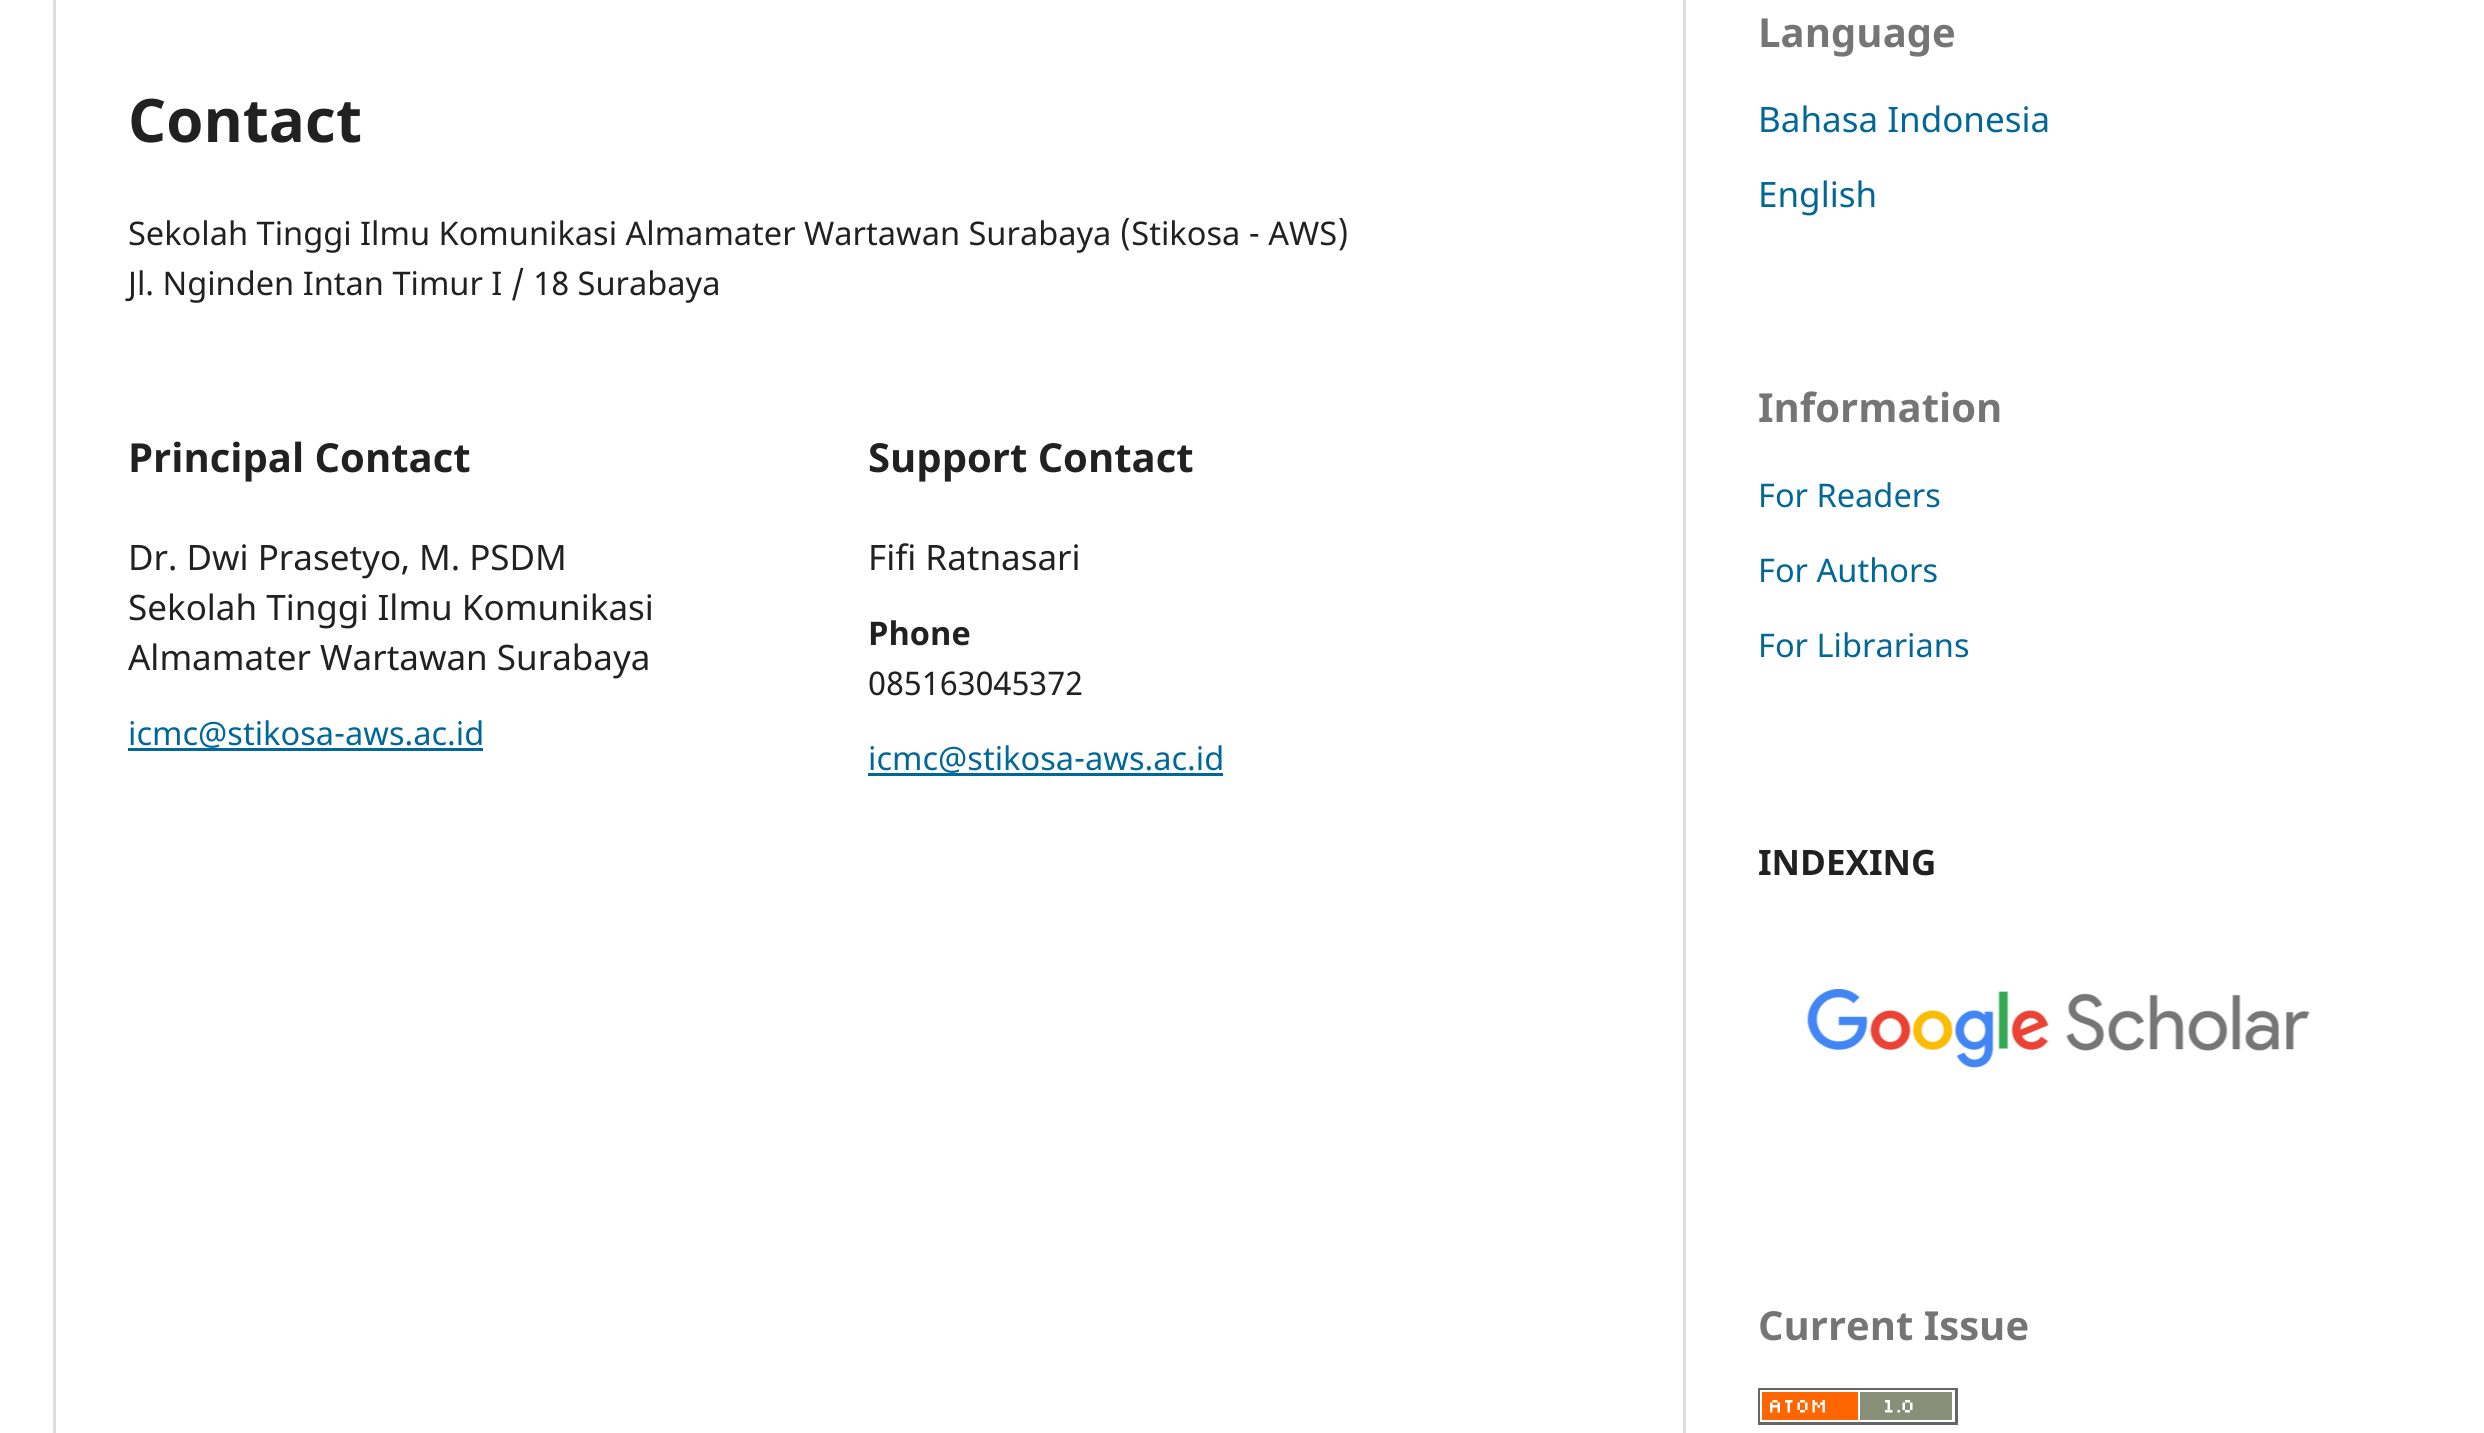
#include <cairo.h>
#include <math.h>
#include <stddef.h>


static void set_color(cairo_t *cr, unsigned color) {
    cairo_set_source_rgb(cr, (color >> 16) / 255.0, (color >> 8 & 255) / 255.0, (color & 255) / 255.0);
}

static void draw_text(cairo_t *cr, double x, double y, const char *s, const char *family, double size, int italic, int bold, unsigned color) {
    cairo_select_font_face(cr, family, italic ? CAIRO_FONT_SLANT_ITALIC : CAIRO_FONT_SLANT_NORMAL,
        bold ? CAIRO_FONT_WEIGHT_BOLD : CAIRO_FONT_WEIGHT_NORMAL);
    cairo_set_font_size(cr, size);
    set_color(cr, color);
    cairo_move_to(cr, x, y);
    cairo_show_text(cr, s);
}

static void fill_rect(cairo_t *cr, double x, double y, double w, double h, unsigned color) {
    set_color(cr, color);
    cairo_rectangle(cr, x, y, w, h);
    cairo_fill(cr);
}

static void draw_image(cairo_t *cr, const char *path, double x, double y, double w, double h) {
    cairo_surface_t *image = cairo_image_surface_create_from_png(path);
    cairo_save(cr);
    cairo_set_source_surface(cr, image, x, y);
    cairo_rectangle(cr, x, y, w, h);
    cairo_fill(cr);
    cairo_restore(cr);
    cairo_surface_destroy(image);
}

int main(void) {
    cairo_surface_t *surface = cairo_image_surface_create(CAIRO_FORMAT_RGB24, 2484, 1433);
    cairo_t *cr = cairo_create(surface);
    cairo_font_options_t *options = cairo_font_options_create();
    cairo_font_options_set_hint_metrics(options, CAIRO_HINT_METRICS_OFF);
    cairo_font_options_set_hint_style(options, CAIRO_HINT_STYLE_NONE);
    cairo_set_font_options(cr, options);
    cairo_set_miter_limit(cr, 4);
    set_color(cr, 0xFFFFFF);
    cairo_paint(cr);
    fill_rect(cr, 53, 0, 3, 1433, 0xDDDDDD);
    draw_text(cr, 128, 142, "Contact", "Noto Sans", 60, 0, 1, 0x212121);
    draw_text(cr, 128, 245, "Sekolah Tinggi Ilmu Komunikasi Almamater Wartawan Surabaya (Stikosa - AWS)", "Noto Sans", 32.55, 0, 0, 0x212121);
    draw_text(cr, 128, 295, "Jl. Nginden Intan Timur I / 18 Surabaya", "Noto Sans", 32.55, 0, 0, 0x212121);
    draw_text(cr, 128, 472, "Principal Contact", "Noto Sans", 40, 0, 1, 0x212121);
    draw_text(cr, 128, 570, "Dr. Dwi Prasetyo, M. PSDM", "Noto Sans", 35, 0, 0, 0x212121);
    draw_text(cr, 128, 620, "Sekolah Tinggi Ilmu Komunikasi", "Noto Sans", 35, 0, 0, 0x212121);
    draw_text(cr, 128, 670, "Almamater Wartawan Surabaya", "Noto Sans", 35, 0, 0, 0x212121);
    draw_text(cr, 128, 745, "icmc@stikosa-aws.ac.id", "Noto Sans", 32.55, 0, 0, 0x006798);
    fill_rect(cr, 128, 748, 355, 3, 0x006798);
    draw_text(cr, 868, 472, "Support Contact", "Noto Sans", 40, 0, 1, 0x212121);
    draw_text(cr, 868, 570, "Fifi Ratnasari", "Noto Sans", 35, 0, 0, 0x212121);
    draw_text(cr, 868, 645, "Phone", "Noto Sans", 32.55, 0, 1, 0x212121);
    draw_text(cr, 868, 695, "085163045372", "Noto Sans", 32.55, 0, 0, 0x212121);
    draw_text(cr, 868, 770, "icmc@stikosa-aws.ac.id", "Noto Sans", 32.55, 0, 0, 0x006798);
    fill_rect(cr, 868, 773, 355, 3, 0x006798);
    fill_rect(cr, 1683, 0, 3, 1433, 0xDDDDDD);
    draw_text(cr, 1758, 47, "Language", "Noto Sans", 40, 0, 1, 0x757575);
    draw_text(cr, 1758, 132, "Bahasa Indonesia", "Noto Sans", 35, 0, 0, 0x006798);
    draw_text(cr, 1758, 207, "English", "Noto Sans", 35, 0, 0, 0x006798);
    draw_text(cr, 1758, 422, "Information", "Noto Sans", 40, 0, 1, 0x757575);
    draw_text(cr, 1758, 507, "For Readers", "Noto Sans", 32.55, 0, 0, 0x006798);
    draw_text(cr, 1758, 582, "For Authors", "Noto Sans", 32.55, 0, 0, 0x006798);
    draw_text(cr, 1758, 657, "For Librarians", "Noto Sans", 32.55, 0, 0, 0x006798);
    draw_text(cr, 1758, 875, "INDEXING", "Noto Sans", 35, 0, 1, 0x212121);
    draw_image(cr, "assets/img1.png", 1807, 989, 503, 79);
    draw_text(cr, 1758, 1340, "Current Issue", "Noto Sans", 40, 0, 1, 0x757575);
    draw_image(cr, "assets/img2.png", 1758, 1388, 200, 37);
    cairo_surface_write_to_png(surface, "output.png");
    cairo_font_options_destroy(options);
    cairo_destroy(cr);
    cairo_surface_destroy(surface);
    return 0;
}
